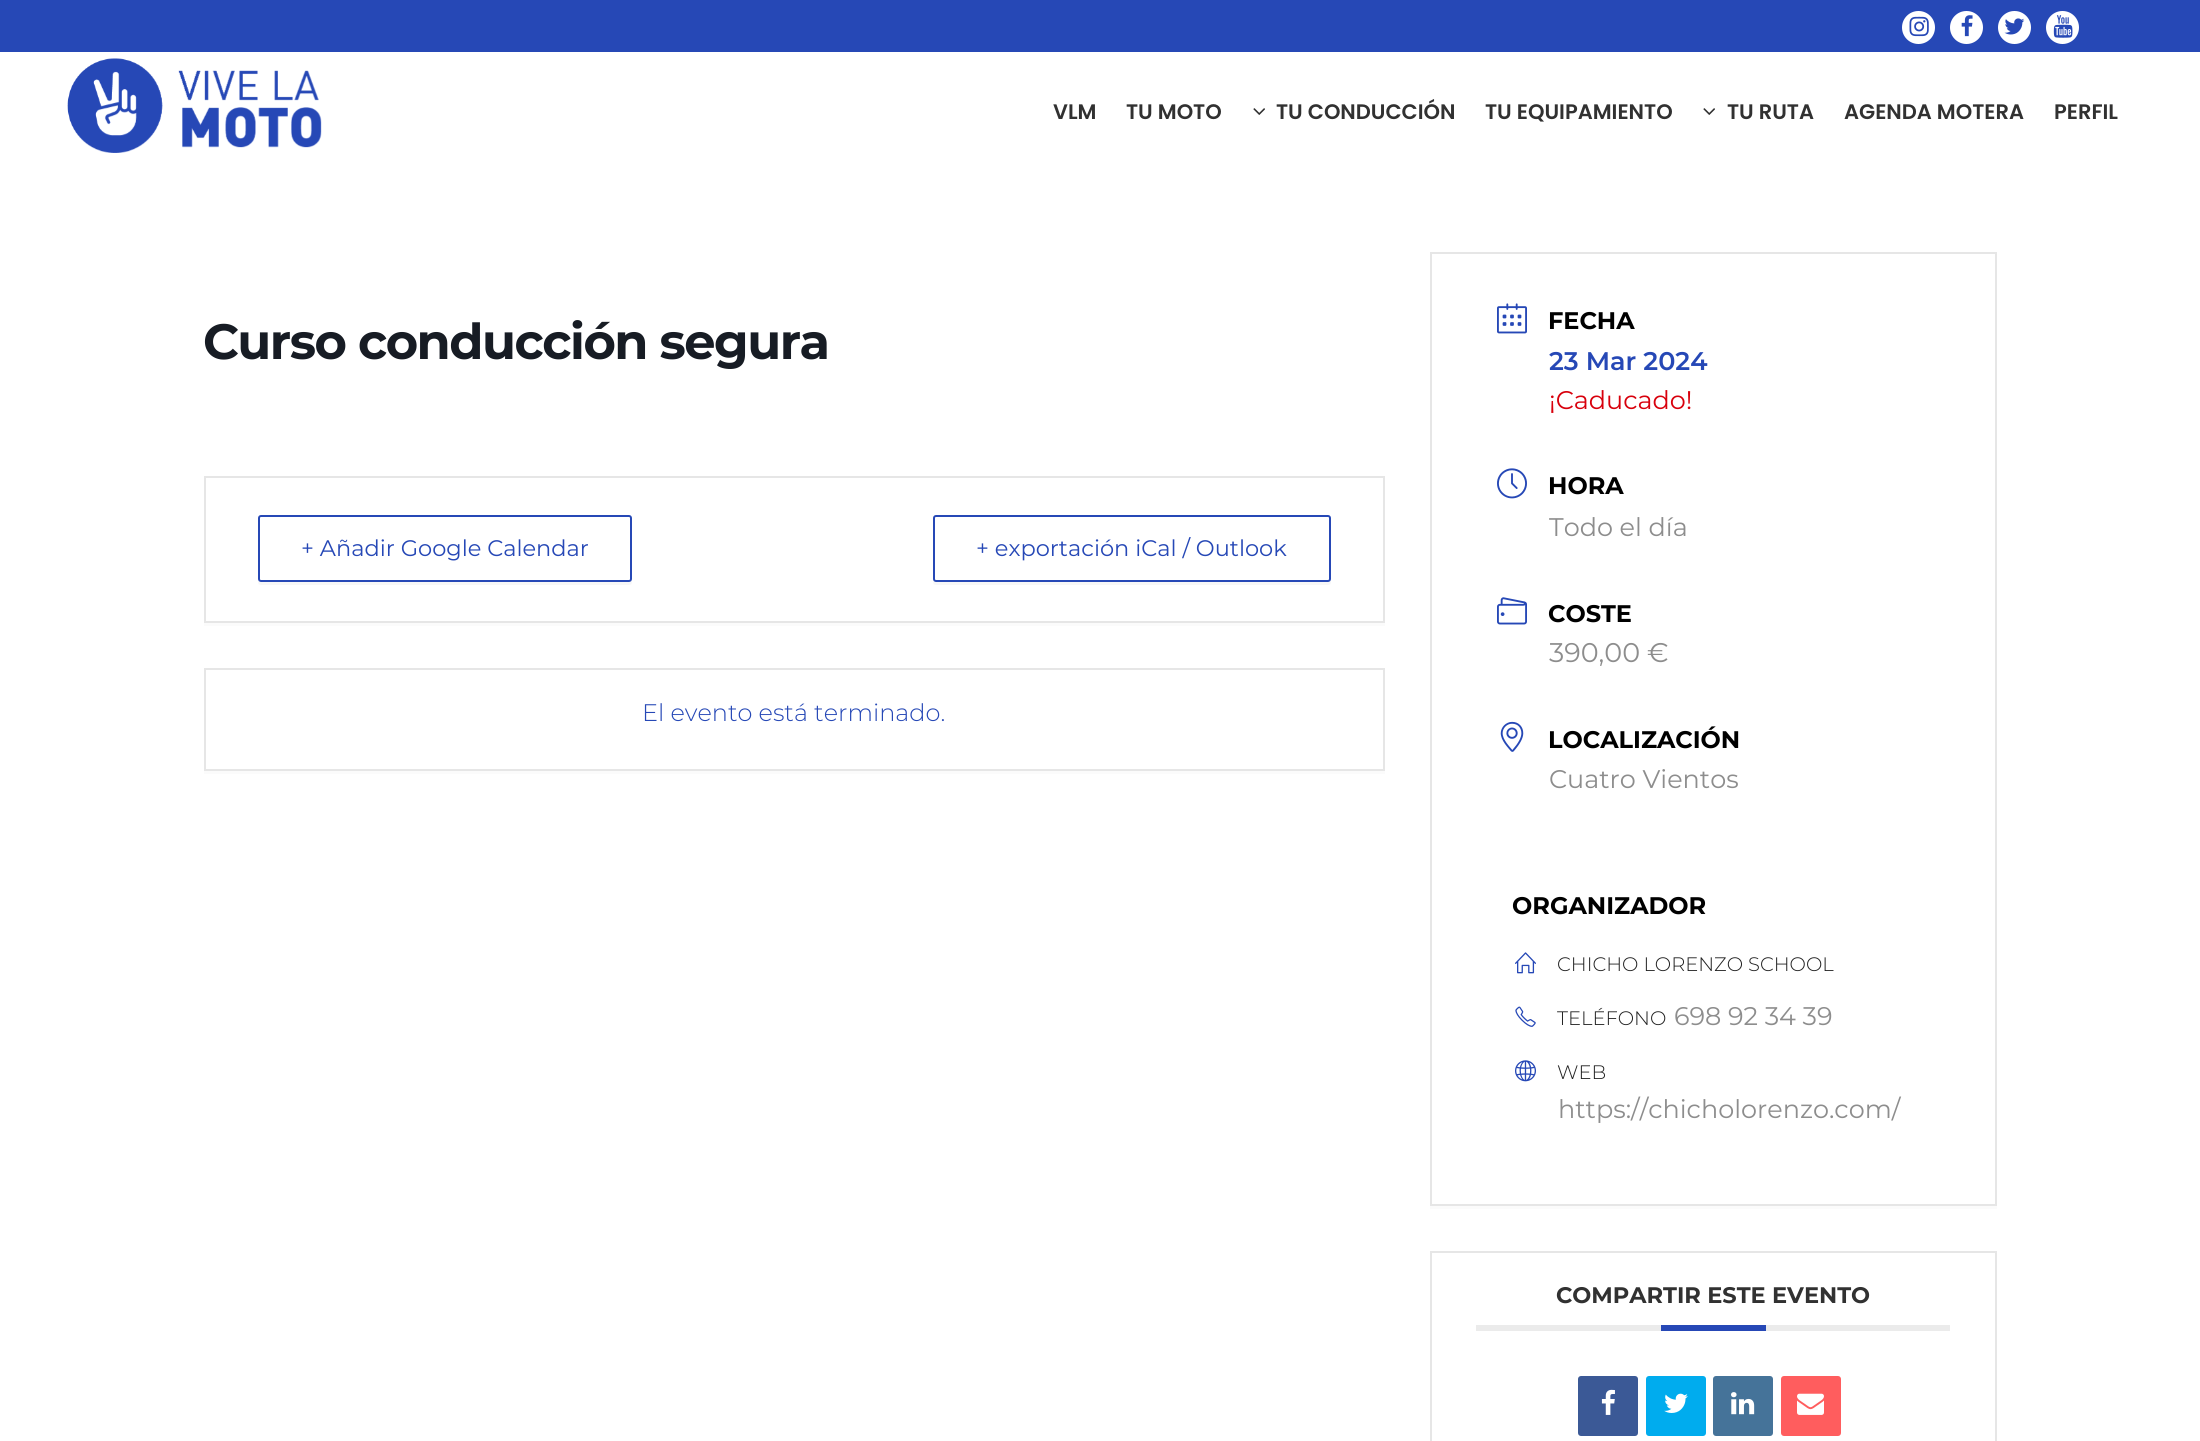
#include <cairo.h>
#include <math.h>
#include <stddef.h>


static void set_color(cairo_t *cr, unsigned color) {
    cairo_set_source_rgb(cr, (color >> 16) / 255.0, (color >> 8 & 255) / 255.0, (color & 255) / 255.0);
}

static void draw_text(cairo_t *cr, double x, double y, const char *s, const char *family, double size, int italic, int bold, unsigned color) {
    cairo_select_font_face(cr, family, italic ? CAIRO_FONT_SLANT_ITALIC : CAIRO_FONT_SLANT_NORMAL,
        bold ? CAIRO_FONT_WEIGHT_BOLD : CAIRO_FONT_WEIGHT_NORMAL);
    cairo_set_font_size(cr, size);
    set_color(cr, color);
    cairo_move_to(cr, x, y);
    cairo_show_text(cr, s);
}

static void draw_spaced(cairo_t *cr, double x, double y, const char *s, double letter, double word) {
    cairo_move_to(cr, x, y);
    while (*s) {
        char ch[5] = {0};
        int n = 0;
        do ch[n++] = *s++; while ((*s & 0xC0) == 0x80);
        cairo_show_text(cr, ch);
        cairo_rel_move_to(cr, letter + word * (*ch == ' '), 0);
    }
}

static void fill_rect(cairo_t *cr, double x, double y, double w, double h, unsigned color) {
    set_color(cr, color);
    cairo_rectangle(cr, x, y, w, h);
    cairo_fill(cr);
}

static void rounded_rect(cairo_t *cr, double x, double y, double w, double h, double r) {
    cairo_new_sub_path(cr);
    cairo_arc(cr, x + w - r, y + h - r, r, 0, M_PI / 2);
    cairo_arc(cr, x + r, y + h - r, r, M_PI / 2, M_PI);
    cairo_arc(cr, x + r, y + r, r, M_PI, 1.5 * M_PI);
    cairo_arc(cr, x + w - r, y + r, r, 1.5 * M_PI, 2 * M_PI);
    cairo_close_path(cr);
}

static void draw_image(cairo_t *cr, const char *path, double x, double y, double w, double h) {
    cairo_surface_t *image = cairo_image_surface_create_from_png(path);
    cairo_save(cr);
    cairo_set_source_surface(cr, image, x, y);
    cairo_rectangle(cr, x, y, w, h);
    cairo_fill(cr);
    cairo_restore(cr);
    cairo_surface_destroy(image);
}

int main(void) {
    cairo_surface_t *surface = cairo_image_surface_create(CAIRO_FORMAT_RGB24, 2200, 1441);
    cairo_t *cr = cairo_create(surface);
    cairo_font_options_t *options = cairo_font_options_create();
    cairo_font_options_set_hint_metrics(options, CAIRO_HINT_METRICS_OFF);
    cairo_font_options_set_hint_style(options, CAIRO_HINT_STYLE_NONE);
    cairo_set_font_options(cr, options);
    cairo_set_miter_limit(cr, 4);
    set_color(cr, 0xFFFFFF);
    cairo_paint(cr);
    fill_rect(cr, 0, 0, 2200, 52, 0x2648B6);
    set_color(cr, 0xFFFFFF);
    cairo_arc(cr, 1918.5, 27.5, 16.5, 0, 2 * M_PI);
    cairo_fill(cr);
    draw_image(cr, "assets/img1.png", 1909, 16, 20, 21);
    cairo_arc(cr, 1966.5, 27.5, 16.5, 0, 2 * M_PI);
    cairo_fill(cr);
    draw_image(cr, "assets/img2.png", 1961, 15, 12, 22);
    cairo_arc(cr, 2014.5, 27.5, 16.5, 0, 2 * M_PI);
    cairo_fill(cr);
    draw_image(cr, "assets/img3.png", 2004, 18, 21, 17);
    cairo_arc(cr, 2062.5, 27.5, 16.5, 0, 2 * M_PI);
    cairo_fill(cr);
    draw_image(cr, "assets/img4.png", 2053, 15, 20, 23);
    draw_image(cr, "assets/img5.png", 67, 58, 255, 95);
    draw_text(cr, 1053, 119, "VLM", "Poppins SemiBold", 21, 0, 0, 0x313131);
    draw_text(cr, 1126, 119, "TU MOTO", "Poppins SemiBold", 21, 0, 0, 0x313131);
    draw_image(cr, "assets/img6.png", 1253, 108, 12, 7);
    draw_text(cr, 1276, 119, "TU CONDUCCIÓN", "Poppins SemiBold", 21, 0, 0, 0x313131);
    draw_text(cr, 1485, 119, "TU EQUIPAMIENTO", "Poppins SemiBold", 21, 0, 0, 0x313131);
    draw_image(cr, "assets/img6.png", 1703, 108, 12, 7);
    draw_text(cr, 1727, 119, "TU RUTA", "Poppins SemiBold", 21, 0, 0, 0x313131);
    draw_text(cr, 1844, 119, "AGENDA MOTERA", "Poppins SemiBold", 21, 0, 0, 0x313131);
    draw_text(cr, 2054, 119, "PERFIL", "Poppins SemiBold", 21, 0, 0, 0x313131);
    cairo_select_font_face(cr, "Montserrat", CAIRO_FONT_SLANT_NORMAL, CAIRO_FONT_WEIGHT_BOLD);
    cairo_set_font_size(cr, 49.5);
    set_color(cr, 0x171C24);
    draw_spaced(cr, 203, 359, "Curso conducción segura", -1.5, 0);
    set_color(cr, 0xFBFBFB);
    cairo_new_path(cr);
    cairo_move_to(cr, 204, 622);
    cairo_line_to(cr, 204, 626);
    cairo_line_to(cr, 1385, 626);
    cairo_line_to(cr, 1385, 479);
    cairo_line_to(cr, 1384, 479);
    cairo_line_to(cr, 1384, 622);
    cairo_close_path(cr);
    cairo_fill(cr);
    cairo_rectangle(cr, 205, 477, 1179, 145);
    set_color(cr, 0xE6E6E6);
    cairo_stroke(cr);
    set_color(cr, 0xF7F7F7);
    cairo_new_path(cr);
    cairo_move_to(cr, 258, 579);
    cairo_line_to(cr, 258, 582);
    cairo_curve_to(cr, 258, 584, 259, 585, 261, 585);
    cairo_line_to(cr, 629, 585);
    cairo_curve_to(cr, 631, 585, 632, 584, 632, 582);
    cairo_line_to(cr, 632, 521);
    cairo_line_to(cr, 632, 519);
    cairo_line_to(cr, 632, 579);
    cairo_curve_to(cr, 632, 581, 630, 582, 628, 582);
    cairo_line_to(cr, 261, 582);
    cairo_curve_to(cr, 259, 582, 258, 581, 258, 579);
    cairo_close_path(cr);
    cairo_fill(cr);
    set_color(cr, 0xFFFFFF);
    rounded_rect(cr, 259, 516, 372, 65, 2);
    cairo_fill_preserve(cr);
    set_color(cr, 0x2648B6);
    cairo_stroke(cr);
    draw_text(cr, 301, 556, "+ Añadir Google Calendar", "Montserrat", 22.5, 0, 0, 0x2648B6);
    set_color(cr, 0xF7F7F7);
    cairo_new_path(cr);
    cairo_move_to(cr, 933, 579);
    cairo_line_to(cr, 933, 582);
    cairo_curve_to(cr, 933, 584, 934, 585, 936, 585);
    cairo_line_to(cr, 1328, 585);
    cairo_curve_to(cr, 1330, 585, 1331, 584, 1331, 582);
    cairo_line_to(cr, 1331, 521);
    cairo_line_to(cr, 1330, 519);
    cairo_line_to(cr, 1330, 579);
    cairo_curve_to(cr, 1330, 581, 1329, 582, 1328, 582);
    cairo_line_to(cr, 936, 582);
    cairo_curve_to(cr, 934, 582, 933, 581, 933, 579);
    cairo_close_path(cr);
    cairo_fill(cr);
    set_color(cr, 0xFFFFFF);
    rounded_rect(cr, 934, 516, 396, 65, 2);
    cairo_fill_preserve(cr);
    set_color(cr, 0x2648B6);
    cairo_stroke(cr);
    draw_text(cr, 976, 556, "+ exportación iCal / Outlook", "Montserrat", 22.5, 0, 0, 0x2648B6);
    set_color(cr, 0xFBFBFB);
    cairo_new_path(cr);
    cairo_move_to(cr, 204, 771);
    cairo_line_to(cr, 204, 774);
    cairo_line_to(cr, 1385, 774);
    cairo_line_to(cr, 1385, 671);
    cairo_line_to(cr, 1384, 671);
    cairo_line_to(cr, 1384, 771);
    cairo_close_path(cr);
    cairo_fill(cr);
    cairo_rectangle(cr, 205, 669, 1179, 101);
    set_color(cr, 0xE6E6E6);
    cairo_stroke(cr);
    draw_text(cr, 642, 721, "El evento está terminado.", "Montserrat Light", 24, 0, 0, 0x2648B6);
    set_color(cr, 0xFBFBFB);
    cairo_new_path(cr);
    cairo_move_to(cr, 1430, 1206);
    cairo_line_to(cr, 1430, 1209);
    cairo_line_to(cr, 1997, 1209);
    cairo_line_to(cr, 1997, 255);
    cairo_line_to(cr, 1996, 255);
    cairo_line_to(cr, 1996, 1206);
    cairo_close_path(cr);
    cairo_fill(cr);
    cairo_rectangle(cr, 1431, 253, 565, 952);
    set_color(cr, 0xE6E6E6);
    cairo_stroke(cr);
    draw_image(cr, "assets/img7.png", 1497, 303, 30, 31);
    draw_text(cr, 1548, 329, "FECHA", "Montserrat", 24, 0, 1, 0x000000);
    draw_text(cr, 1549, 370, "23 Mar 2024", "Montserrat SemiBold", 25.5, 0, 0, 0x2648B6);
    draw_text(cr, 1549, 409, "¡Caducado!", "Montserrat", 25.5, 0, 0, 0xD8000C);
    draw_image(cr, "assets/img8.png", 1497, 468, 30, 31);
    draw_text(cr, 1548, 494, "HORA", "Montserrat", 24, 0, 1, 0x000000);
    draw_text(cr, 1549, 536, "Todo el día", "Montserrat", 25.5, 0, 0, 0x8D8D8D);
    draw_image(cr, "assets/img9.png", 1497, 597, 30, 28);
    draw_text(cr, 1548, 622, "COSTE", "Montserrat", 24, 0, 1, 0x000000);
    draw_text(cr, 1549, 662, "390,00 €", "Montserrat", 27, 0, 0, 0x8D8D8D);
    draw_image(cr, "assets/img10.png", 1500, 721, 24, 31);
    draw_text(cr, 1548, 748, "LOCALIZACIÓN", "Montserrat", 24, 0, 1, 0x000000);
    draw_text(cr, 1549, 788, "Cuatro Vientos", "Montserrat", 25.5, 0, 0, 0x8D8D8D);
    draw_text(cr, 1512, 914, "ORGANIZADOR", "Montserrat", 24, 0, 1, 0x000000);
    draw_image(cr, "assets/img11.png", 1515, 952, 21, 22);
    draw_text(cr, 1557, 971, "CHICHO LORENZO SCHOOL", "Montserrat Light", 19.5, 0, 0, 0x222222);
    draw_image(cr, "assets/img12.png", 1515, 1006, 21, 21);
    draw_text(cr, 1557, 1025, "TELÉFONO", "Montserrat Light", 19.5, 0, 0, 0x222222);
    draw_text(cr, 1674, 1025, "698 92 34 39", "Montserrat", 25.5, 0, 0, 0x8D8D8D);
    draw_image(cr, "assets/img13.png", 1515, 1060, 21, 22);
    draw_text(cr, 1557, 1079, "WEB", "Montserrat Light", 19.5, 0, 0, 0x222222);
    draw_text(cr, 1558, 1118, "https://chicholorenzo.com/", "Montserrat", 25.5, 0, 0, 0x8D8D8D);
    cairo_rectangle(cr, 1431, 1252, 565, 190);
    set_color(cr, 0xE6E6E6);
    cairo_stroke(cr);
    fill_rect(cr, 1476, 1325, 474, 6, 0xEBEBEB);
    draw_text(cr, 1556, 1303, "COMPARTIR ESTE EVENTO", "Montserrat", 22.5, 0, 1, 0x313131);
    fill_rect(cr, 1661, 1325, 105, 6, 0x2648B6);
    set_color(cr, 0x3B5996);
    rounded_rect(cr, 1578, 1376, 60, 60, 3);
    cairo_fill(cr);
    draw_image(cr, "assets/img14.png", 1601, 1389, 14, 26);
    set_color(cr, 0x00ACEE);
    rounded_rect(cr, 1646, 1376, 60, 60, 3);
    cairo_fill(cr);
    draw_image(cr, "assets/img15.png", 1664, 1393, 24, 20);
    set_color(cr, 0x457399);
    rounded_rect(cr, 1713, 1376, 60, 60, 3);
    cairo_fill(cr);
    draw_image(cr, "assets/img16.png", 1731, 1392, 24, 23);
    set_color(cr, 0xFF5D5E);
    rounded_rect(cr, 1781, 1376, 60, 60, 3);
    cairo_fill(cr);
    draw_image(cr, "assets/img17.png", 1797, 1393, 27, 22);
    cairo_surface_write_to_png(surface, "output.png");
    cairo_font_options_destroy(options);
    cairo_destroy(cr);
    cairo_surface_destroy(surface);
    return 0;
}
